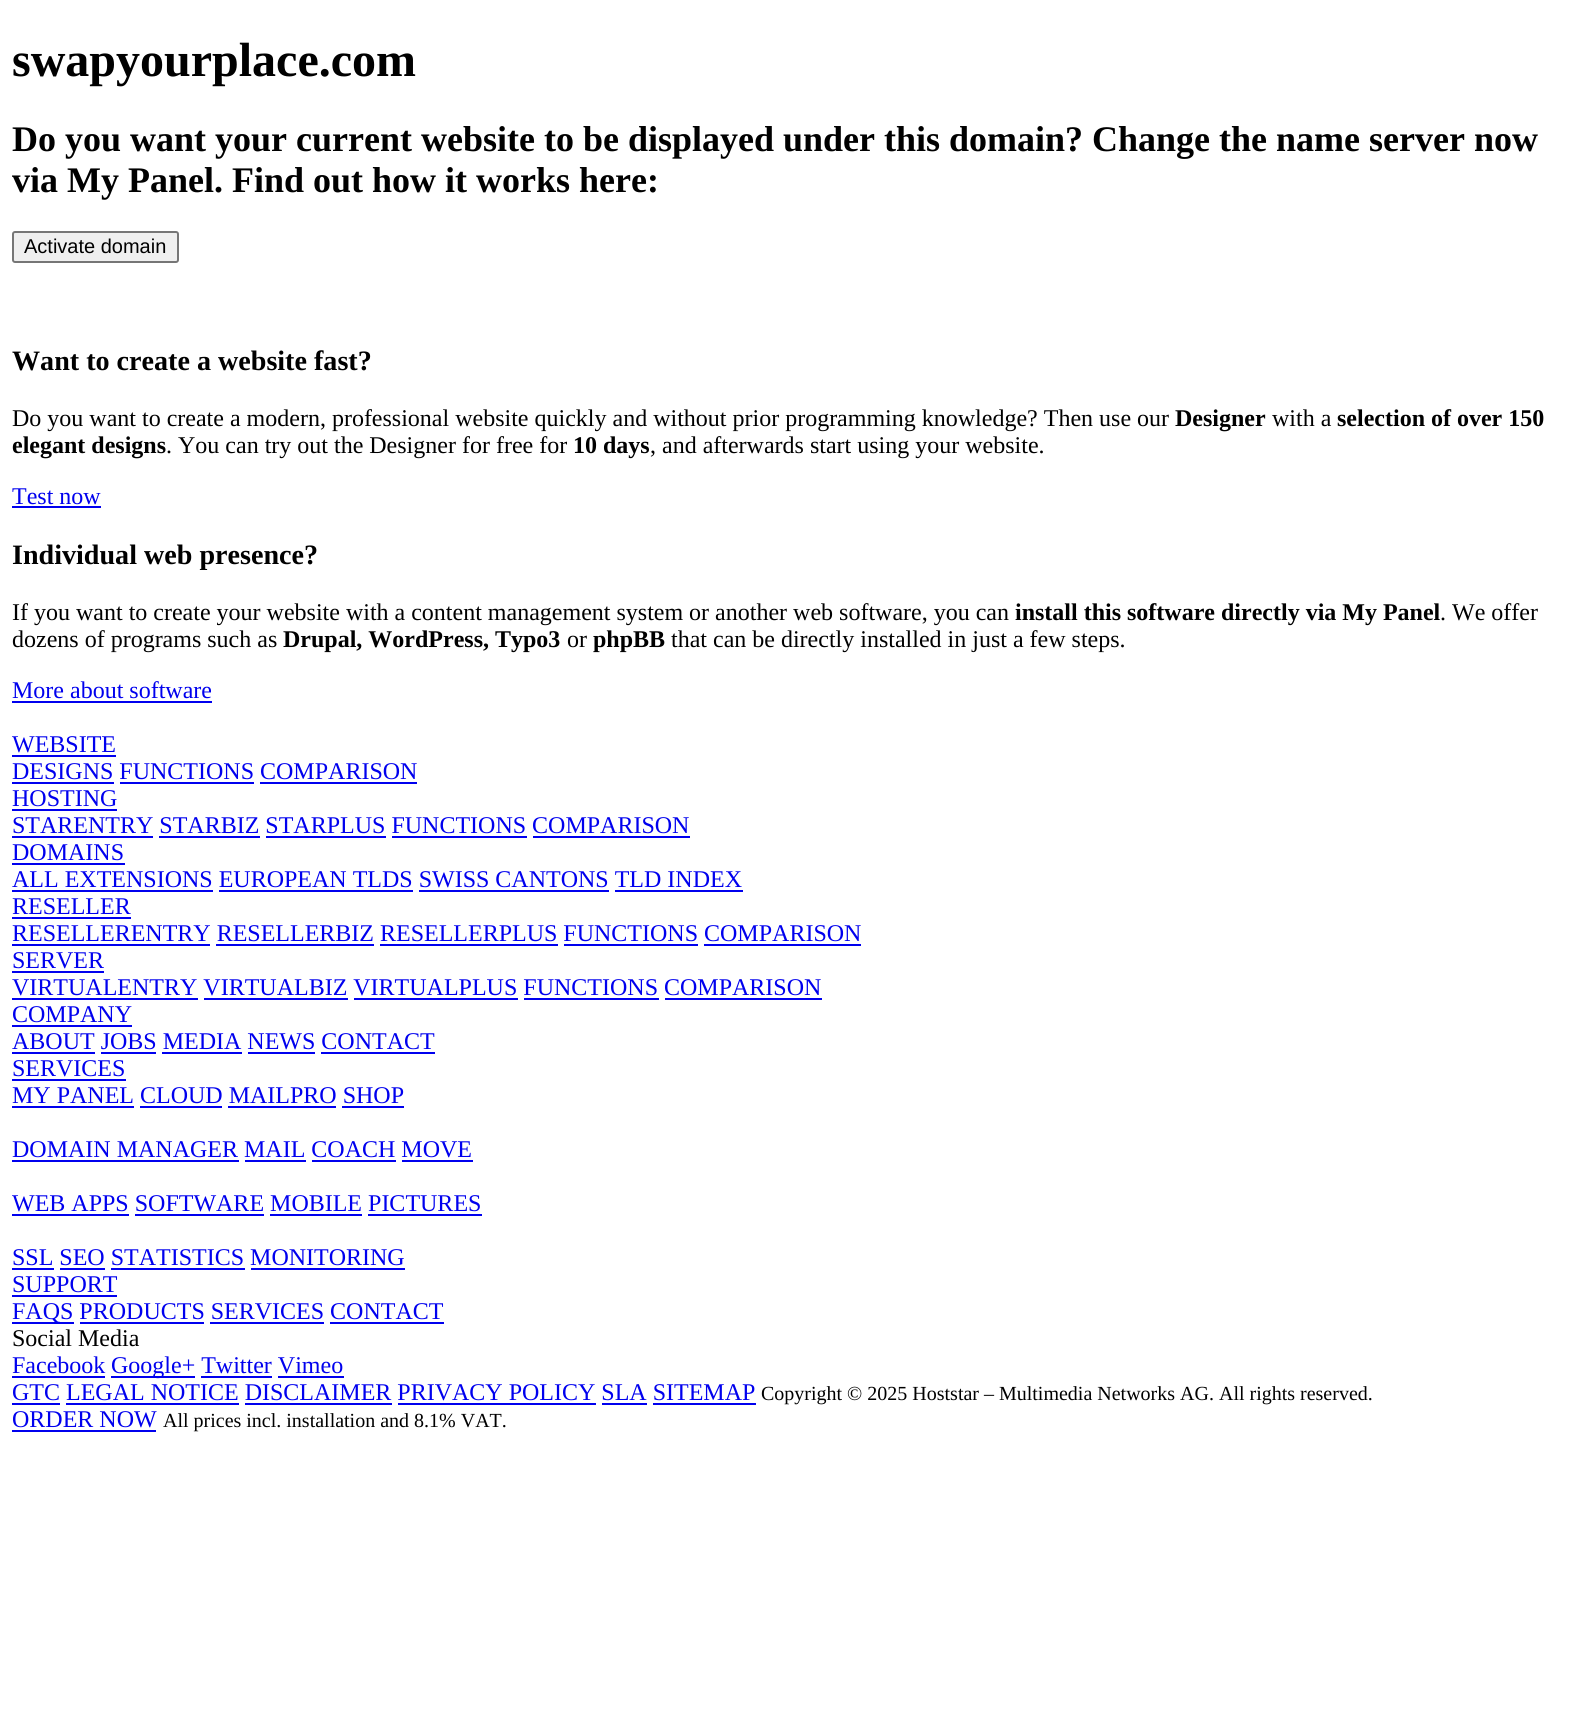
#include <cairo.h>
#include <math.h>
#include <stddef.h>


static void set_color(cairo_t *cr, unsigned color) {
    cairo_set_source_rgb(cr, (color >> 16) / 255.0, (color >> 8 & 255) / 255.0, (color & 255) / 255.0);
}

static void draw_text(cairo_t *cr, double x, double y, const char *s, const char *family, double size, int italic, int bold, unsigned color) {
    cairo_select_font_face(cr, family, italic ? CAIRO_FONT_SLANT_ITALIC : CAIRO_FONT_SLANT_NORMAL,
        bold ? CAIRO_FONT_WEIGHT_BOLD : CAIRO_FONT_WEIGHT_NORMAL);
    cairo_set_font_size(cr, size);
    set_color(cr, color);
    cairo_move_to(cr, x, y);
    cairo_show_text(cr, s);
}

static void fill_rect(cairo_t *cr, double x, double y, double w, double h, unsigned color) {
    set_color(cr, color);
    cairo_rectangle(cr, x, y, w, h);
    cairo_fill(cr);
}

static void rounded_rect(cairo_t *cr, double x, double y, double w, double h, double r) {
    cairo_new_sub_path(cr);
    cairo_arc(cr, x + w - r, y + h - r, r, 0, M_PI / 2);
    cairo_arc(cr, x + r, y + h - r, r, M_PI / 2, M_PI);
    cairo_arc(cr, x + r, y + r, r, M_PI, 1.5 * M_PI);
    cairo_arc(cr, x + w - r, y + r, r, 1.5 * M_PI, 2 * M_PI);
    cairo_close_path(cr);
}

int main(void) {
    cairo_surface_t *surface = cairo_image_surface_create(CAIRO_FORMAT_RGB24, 1570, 1726);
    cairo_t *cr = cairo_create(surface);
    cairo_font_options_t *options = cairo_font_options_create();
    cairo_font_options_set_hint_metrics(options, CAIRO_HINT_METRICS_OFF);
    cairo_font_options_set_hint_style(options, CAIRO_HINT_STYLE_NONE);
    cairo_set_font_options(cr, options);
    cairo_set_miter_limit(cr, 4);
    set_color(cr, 0xFFFFFF);
    cairo_paint(cr);
    draw_text(cr, 12, 76, "swapyourplace.com", "Liberation Serif", 48, 0, 1, 0x000000);
    draw_text(cr, 12, 151, "Do you want your current website to be displayed under this domain? Change the name server now", "Liberation Serif", 36, 0, 1, 0x000000);
    draw_text(cr, 12, 192, "via My Panel. Find out how it works here:", "Liberation Serif", 36, 0, 1, 0x000000);
    set_color(cr, 0xEFEFEF);
    rounded_rect(cr, 13, 232, 165, 30, 2);
    cairo_fill_preserve(cr);
    set_color(cr, 0x767676);
    cairo_stroke(cr);
    draw_text(cr, 24, 253, "Activate domain", "Liberation Sans", 20, 0, 0, 0x000000);
    draw_text(cr, 12, 370, "Want to create a website fast?", "Liberation Serif", 28.1, 0, 1, 0x000000);
    draw_text(cr, 12, 426, "Do you want to create a modern, professional website quickly and without prior programming knowledge? Then use our", "Liberation Serif", 24, 0, 0, 0x000000);
    draw_text(cr, 1175, 426, "Designer", "Liberation Serif", 24, 0, 1, 0x000000);
    draw_text(cr, 1272, 426, "with a", "Liberation Serif", 24, 0, 0, 0x000000);
    draw_text(cr, 1337, 426, "selection of over 150", "Liberation Serif", 24, 0, 1, 0x000000);
    draw_text(cr, 12, 453, "elegant designs", "Liberation Serif", 24, 0, 1, 0x000000);
    draw_text(cr, 166, 453, ". You can try out the Designer for free for", "Liberation Serif", 24, 0, 0, 0x000000);
    draw_text(cr, 573, 453, "10 days", "Liberation Serif", 24, 0, 1, 0x000000);
    draw_text(cr, 650, 453, ", and afterwards start using your website.", "Liberation Serif", 24, 0, 0, 0x000000);
    draw_text(cr, 12, 504, "Test now", "Liberation Serif", 24, 0, 0, 0x0000EE);
    fill_rect(cr, 12, 506, 89, 2, 0x0000EE);
    draw_text(cr, 12, 564, "Individual web presence?", "Liberation Serif", 28.1, 0, 1, 0x000000);
    draw_text(cr, 12, 620, "If you want to create your website with a content management system or another web software, you can", "Liberation Serif", 24, 0, 0, 0x000000);
    draw_text(cr, 1015, 620, "install this software directly via My Panel", "Liberation Serif", 24, 0, 1, 0x000000);
    draw_text(cr, 1440, 620, ". We offer", "Liberation Serif", 24, 0, 0, 0x000000);
    draw_text(cr, 12, 647, "dozens of programs such as", "Liberation Serif", 24, 0, 0, 0x000000);
    draw_text(cr, 283, 647, "Drupal, WordPress, Typo3", "Liberation Serif", 24, 0, 1, 0x000000);
    draw_text(cr, 567, 647, "or", "Liberation Serif", 24, 0, 0, 0x000000);
    draw_text(cr, 593, 647, "phpBB", "Liberation Serif", 24, 0, 1, 0x000000);
    draw_text(cr, 671, 647, "that can be directly installed in just a few steps.", "Liberation Serif", 24, 0, 0, 0x000000);
    draw_text(cr, 12, 698, "More about software", "Liberation Serif", 24, 0, 0, 0x0000EE);
    fill_rect(cr, 12, 701, 200, 2, 0x0000EE);
    draw_text(cr, 12, 752, "WEBSITE", "Liberation Serif", 24, 0, 0, 0x0000EE);
    fill_rect(cr, 12, 755, 104, 2, 0x0000EE);
    draw_text(cr, 12, 779, "DESIGNS FUNCTIONS COMPARISON", "Liberation Serif", 24, 0, 0, 0x0000EE);
    fill_rect(cr, 12, 782, 102, 2, 0x0000EE);
    fill_rect(cr, 120, 782, 134, 2, 0x0000EE);
    fill_rect(cr, 260, 782, 157, 2, 0x0000EE);
    draw_text(cr, 12, 806, "HOSTING", "Liberation Serif", 24, 0, 0, 0x0000EE);
    fill_rect(cr, 12, 809, 105, 2, 0x0000EE);
    draw_text(cr, 12, 833, "STARENTRY STARBIZ STARPLUS FUNCTIONS COMPARISON", "Liberation Serif", 24, 0, 0, 0x0000EE);
    fill_rect(cr, 12, 836, 141, 2, 0x0000EE);
    fill_rect(cr, 159, 836, 101, 2, 0x0000EE);
    fill_rect(cr, 266, 836, 120, 2, 0x0000EE);
    fill_rect(cr, 392, 836, 135, 2, 0x0000EE);
    fill_rect(cr, 533, 836, 157, 2, 0x0000EE);
    draw_text(cr, 12, 860, "DOMAINS", "Liberation Serif", 24, 0, 0, 0x0000EE);
    fill_rect(cr, 12, 863, 113, 2, 0x0000EE);
    draw_text(cr, 12, 887, "ALL EXTENSIONS EUROPEAN TLDS SWISS CANTONS TLD INDEX", "Liberation Serif", 24, 0, 0, 0x0000EE);
    fill_rect(cr, 12, 890, 201, 2, 0x0000EE);
    fill_rect(cr, 219, 890, 194, 2, 0x0000EE);
    fill_rect(cr, 419, 890, 190, 2, 0x0000EE);
    fill_rect(cr, 615, 890, 128, 2, 0x0000EE);
    draw_text(cr, 12, 914, "RESELLER", "Liberation Serif", 24, 0, 0, 0x0000EE);
    fill_rect(cr, 12, 917, 119, 2, 0x0000EE);
    draw_text(cr, 12, 941, "RESELLERENTRY RESELLERBIZ RESELLERPLUS FUNCTIONS COMPARISON", "Liberation Serif", 24, 0, 0, 0x0000EE);
    fill_rect(cr, 12, 944, 198, 2, 0x0000EE);
    fill_rect(cr, 216, 944, 158, 2, 0x0000EE);
    fill_rect(cr, 380, 944, 178, 2, 0x0000EE);
    fill_rect(cr, 564, 944, 134, 2, 0x0000EE);
    fill_rect(cr, 704, 944, 157, 2, 0x0000EE);
    draw_text(cr, 12, 968, "SERVER", "Liberation Serif", 24, 0, 0, 0x0000EE);
    fill_rect(cr, 12, 971, 92, 2, 0x0000EE);
    draw_text(cr, 12, 995, "VIRTUALENTRY VIRTUALBIZ VIRTUALPLUS FUNCTIONS COMPARISON", "Liberation Serif", 24, 0, 0, 0x0000EE);
    fill_rect(cr, 12, 998, 186, 2, 0x0000EE);
    fill_rect(cr, 204, 998, 144, 2, 0x0000EE);
    fill_rect(cr, 354, 998, 164, 2, 0x0000EE);
    fill_rect(cr, 524, 998, 135, 2, 0x0000EE);
    fill_rect(cr, 665, 998, 157, 2, 0x0000EE);
    draw_text(cr, 12, 1022, "COMPANY", "Liberation Serif", 24, 0, 0, 0x0000EE);
    fill_rect(cr, 12, 1025, 120, 2, 0x0000EE);
    draw_text(cr, 12, 1049, "ABOUT JOBS MEDIA NEWS CONTACT", "Liberation Serif", 24, 0, 0, 0x0000EE);
    fill_rect(cr, 12, 1052, 83, 2, 0x0000EE);
    fill_rect(cr, 101, 1052, 55, 2, 0x0000EE);
    fill_rect(cr, 162, 1052, 80, 2, 0x0000EE);
    fill_rect(cr, 248, 1052, 67, 2, 0x0000EE);
    fill_rect(cr, 321, 1052, 114, 2, 0x0000EE);
    draw_text(cr, 12, 1076, "SERVICES", "Liberation Serif", 24, 0, 0, 0x0000EE);
    fill_rect(cr, 12, 1079, 114, 2, 0x0000EE);
    draw_text(cr, 12, 1103, "MY PANEL CLOUD MAILPRO SHOP", "Liberation Serif", 24, 0, 0, 0x0000EE);
    fill_rect(cr, 12, 1106, 122, 2, 0x0000EE);
    fill_rect(cr, 140, 1106, 82, 2, 0x0000EE);
    fill_rect(cr, 228, 1106, 108, 2, 0x0000EE);
    fill_rect(cr, 342, 1106, 62, 2, 0x0000EE);
    draw_text(cr, 12, 1157, "DOMAIN MANAGER MAIL COACH MOVE", "Liberation Serif", 24, 0, 0, 0x0000EE);
    fill_rect(cr, 12, 1160, 227, 2, 0x0000EE);
    fill_rect(cr, 245, 1160, 61, 2, 0x0000EE);
    fill_rect(cr, 312, 1160, 84, 2, 0x0000EE);
    fill_rect(cr, 402, 1160, 71, 2, 0x0000EE);
    draw_text(cr, 12, 1211, "WEB APPS SOFTWARE MOBILE PICTURES", "Liberation Serif", 24, 0, 0, 0x0000EE);
    fill_rect(cr, 12, 1214, 117, 2, 0x0000EE);
    fill_rect(cr, 135, 1214, 129, 2, 0x0000EE);
    fill_rect(cr, 270, 1214, 92, 2, 0x0000EE);
    fill_rect(cr, 368, 1214, 114, 2, 0x0000EE);
    draw_text(cr, 12, 1265, "SSL SEO STATISTICS MONITORING", "Liberation Serif", 24, 0, 0, 0x0000EE);
    fill_rect(cr, 12, 1268, 42, 2, 0x0000EE);
    fill_rect(cr, 60, 1268, 45, 2, 0x0000EE);
    fill_rect(cr, 111, 1268, 134, 2, 0x0000EE);
    fill_rect(cr, 251, 1268, 154, 2, 0x0000EE);
    draw_text(cr, 12, 1292, "SUPPORT", "Liberation Serif", 24, 0, 0, 0x0000EE);
    fill_rect(cr, 12, 1295, 105, 2, 0x0000EE);
    fill_rect(cr, 12, 1322, 62, 2, 0x0000EE);
    draw_text(cr, 12, 1319, "FAQS PRODUCTS SERVICES CONTACT", "Liberation Serif", 24, 0, 0, 0x0000EE);
    fill_rect(cr, 80, 1322, 124, 2, 0x0000EE);
    fill_rect(cr, 210, 1322, 114, 2, 0x0000EE);
    fill_rect(cr, 330, 1322, 114, 2, 0x0000EE);
    draw_text(cr, 12, 1346, "Social Media", "Liberation Serif", 24, 0, 0, 0x000000);
    draw_text(cr, 12, 1373, "Facebook", "Liberation Serif", 24, 0, 0, 0x0000EE);
    fill_rect(cr, 12, 1376, 93, 2, 0x0000EE);
    fill_rect(cr, 111, 1376, 84, 2, 0x0000EE);
    draw_text(cr, 111, 1373, "Google+ Twitter Vimeo", "Liberation Serif", 24, 0, 0, 0x0000EE);
    fill_rect(cr, 201, 1376, 71, 2, 0x0000EE);
    fill_rect(cr, 278, 1376, 66, 2, 0x0000EE);
    draw_text(cr, 12, 1400, "GTC LEGAL NOTICE DISCLAIMER PRIVACY POLICY SLA SITEMAP", "Liberation Serif", 24, 0, 0, 0x0000EE);
    fill_rect(cr, 12, 1403, 48, 2, 0x0000EE);
    draw_text(cr, 761, 1400, "Copyright © 2025 Hoststar – Multimedia Networks AG. All rights reserved.", "Liberation Serif", 20, 0, 0, 0x000000);
    fill_rect(cr, 66, 1403, 173, 2, 0x0000EE);
    fill_rect(cr, 245, 1403, 147, 2, 0x0000EE);
    fill_rect(cr, 398, 1403, 198, 2, 0x0000EE);
    fill_rect(cr, 602, 1403, 45, 2, 0x0000EE);
    fill_rect(cr, 653, 1403, 103, 2, 0x0000EE);
    draw_text(cr, 12, 1427, "ORDER NOW", "Liberation Serif", 24, 0, 0, 0x0000EE);
    fill_rect(cr, 12, 1430, 144, 2, 0x0000EE);
    draw_text(cr, 163, 1427, "All prices incl. installation and 8.1% VAT.", "Liberation Serif", 20, 0, 0, 0x000000);
    cairo_surface_write_to_png(surface, "output.png");
    cairo_font_options_destroy(options);
    cairo_destroy(cr);
    cairo_surface_destroy(surface);
    return 0;
}
